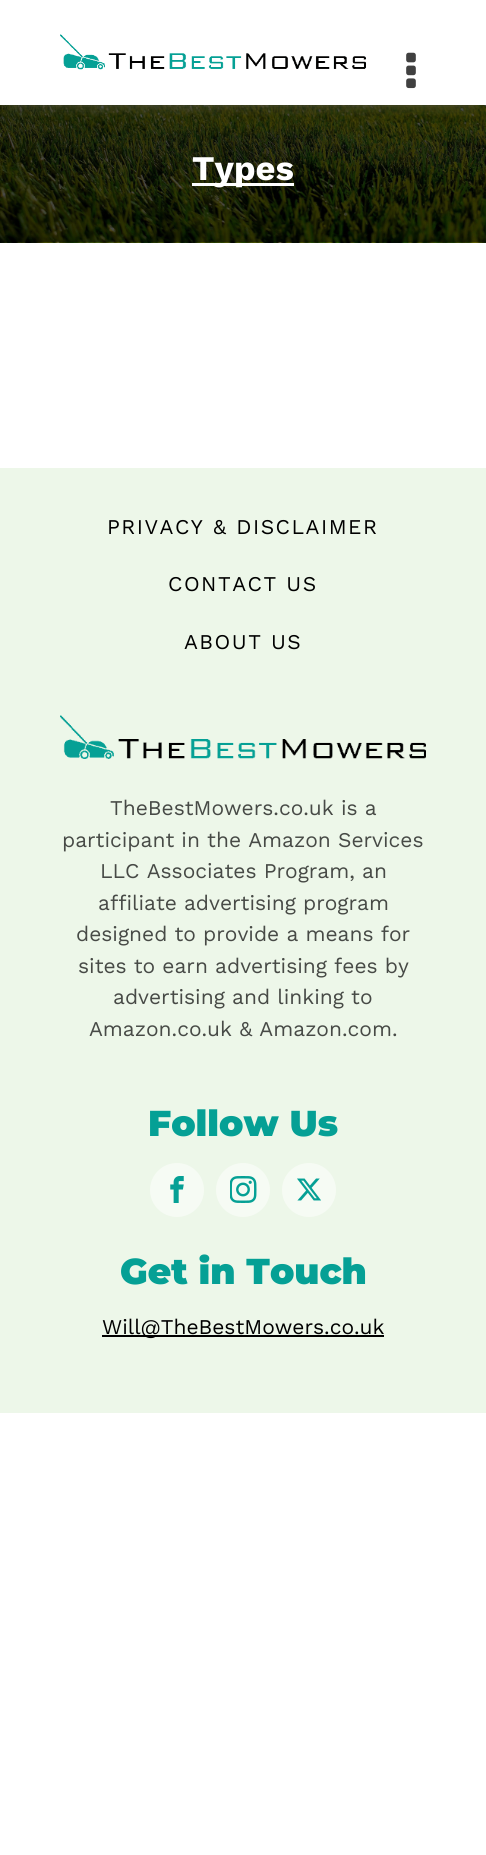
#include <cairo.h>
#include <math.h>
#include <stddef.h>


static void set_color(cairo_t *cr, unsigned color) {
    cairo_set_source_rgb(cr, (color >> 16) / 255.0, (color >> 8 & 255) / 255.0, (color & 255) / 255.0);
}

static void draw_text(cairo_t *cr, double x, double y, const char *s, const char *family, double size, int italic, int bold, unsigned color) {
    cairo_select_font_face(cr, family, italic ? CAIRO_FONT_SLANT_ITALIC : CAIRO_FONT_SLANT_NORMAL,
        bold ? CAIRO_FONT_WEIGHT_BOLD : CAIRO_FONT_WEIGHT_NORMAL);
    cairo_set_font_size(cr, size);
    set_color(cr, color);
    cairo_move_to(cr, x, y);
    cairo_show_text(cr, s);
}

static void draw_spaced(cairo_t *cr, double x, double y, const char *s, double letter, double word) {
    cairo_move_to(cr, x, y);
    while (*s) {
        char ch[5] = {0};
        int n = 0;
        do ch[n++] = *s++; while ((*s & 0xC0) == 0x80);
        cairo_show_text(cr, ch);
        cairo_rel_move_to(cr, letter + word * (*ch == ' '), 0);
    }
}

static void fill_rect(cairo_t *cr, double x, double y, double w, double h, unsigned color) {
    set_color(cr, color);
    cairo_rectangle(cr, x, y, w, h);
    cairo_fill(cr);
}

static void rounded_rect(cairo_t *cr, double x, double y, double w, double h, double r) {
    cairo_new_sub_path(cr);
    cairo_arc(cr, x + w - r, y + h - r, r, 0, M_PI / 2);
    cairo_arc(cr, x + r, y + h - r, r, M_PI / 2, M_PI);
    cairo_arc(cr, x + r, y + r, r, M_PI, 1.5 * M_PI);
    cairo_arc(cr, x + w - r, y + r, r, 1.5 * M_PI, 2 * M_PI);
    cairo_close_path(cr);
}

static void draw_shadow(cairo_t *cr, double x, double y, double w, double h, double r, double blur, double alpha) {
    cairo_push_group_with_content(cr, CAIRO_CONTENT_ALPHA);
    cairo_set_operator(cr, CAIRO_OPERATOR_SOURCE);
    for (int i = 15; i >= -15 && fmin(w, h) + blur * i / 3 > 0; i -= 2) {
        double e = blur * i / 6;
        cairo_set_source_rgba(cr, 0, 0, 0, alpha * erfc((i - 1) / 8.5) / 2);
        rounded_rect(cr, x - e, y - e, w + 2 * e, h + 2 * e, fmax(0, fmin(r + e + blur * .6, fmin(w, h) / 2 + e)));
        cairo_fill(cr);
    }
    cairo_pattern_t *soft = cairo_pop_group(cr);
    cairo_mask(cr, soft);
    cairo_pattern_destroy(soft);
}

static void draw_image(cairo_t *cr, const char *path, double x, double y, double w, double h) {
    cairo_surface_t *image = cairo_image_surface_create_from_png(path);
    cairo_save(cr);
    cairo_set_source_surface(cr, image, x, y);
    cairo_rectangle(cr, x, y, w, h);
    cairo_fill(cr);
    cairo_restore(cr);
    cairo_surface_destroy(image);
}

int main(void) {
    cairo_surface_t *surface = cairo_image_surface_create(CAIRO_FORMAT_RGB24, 486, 1855);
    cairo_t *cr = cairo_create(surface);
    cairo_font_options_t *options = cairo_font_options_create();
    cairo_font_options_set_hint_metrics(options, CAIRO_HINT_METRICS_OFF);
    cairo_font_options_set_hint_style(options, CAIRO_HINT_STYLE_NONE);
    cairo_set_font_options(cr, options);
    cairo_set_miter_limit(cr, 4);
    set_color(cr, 0xFFFFFF);
    cairo_paint(cr);
    draw_image(cr, "assets/img3.png", 0, 105, 486, 138);
    cairo_save(cr);
    cairo_rectangle(cr, 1, 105, 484, 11);
    cairo_clip(cr);
    set_color(cr, 0x666666);
    draw_shadow(cr, 12, 20, 462, 81, 0, 7.5, 1);
    cairo_restore(cr);
    draw_image(cr, "assets/img1.png", 60, 34, 306, 36);
    draw_image(cr, "assets/img2.png", 406, 52, 10, 37);
    fill_rect(cr, 192, 183, 102, 3, 0xFFFFFF);
    draw_text(cr, 192, 180, "Types", "Work Sans", 34.5, 0, 1, 0xFFFFFF);
    fill_rect(cr, 0, 468, 486, 945, 0xEDF7E9);
    cairo_select_font_face(cr, "Work Sans", CAIRO_FONT_SLANT_NORMAL, CAIRO_FONT_WEIGHT_NORMAL);
    cairo_set_font_size(cr, 21);
    set_color(cr, 0x000000);
    draw_spaced(cr, 107, 534, "PRIVACY & DISCLAIMER", 1.5, 0);
    draw_spaced(cr, 168, 591, "CONTACT US", 1.5, 0);
    draw_spaced(cr, 184, 649, "ABOUT US", 1.5, 0);
    draw_image(cr, "assets/img4.png", 60, 715, 366, 44);
    draw_text(cr, 110, 815, "TheBestMowers.co.uk is a", "Work Sans", 21, 0, 0, 0x474A46);
    draw_text(cr, 62, 847, "participant in the Amazon Services", "Work Sans", 21, 0, 0, 0x474A46);
    draw_text(cr, 100, 878, "LLC Associates Program, an", "Work Sans", 21, 0, 0, 0x474A46);
    draw_text(cr, 98, 910, "affiliate advertising program", "Work Sans", 21, 0, 0, 0x474A46);
    draw_text(cr, 76, 941, "designed to provide a means for", "Work Sans", 21, 0, 0, 0x474A46);
    draw_text(cr, 78, 973, "sites to earn advertising fees by", "Work Sans", 21, 0, 0, 0x474A46);
    draw_text(cr, 113, 1004, "advertising and linking to", "Work Sans", 21, 0, 0, 0x474A46);
    draw_text(cr, 89, 1036, "Amazon.co.uk & Amazon.com.", "Work Sans", 21, 0, 0, 0x474A46);
    draw_text(cr, 148, 1136, "Follow Us", "Montserrat Black", 36, 0, 0, 0x05A095);
    set_color(cr, 0xF6FBF4);
    cairo_new_path(cr);
    cairo_arc(cr, 177, 1190, 27, 0, 2 * M_PI);
    cairo_fill(cr);
    draw_image(cr, "assets/img5.png", 170, 1176, 14, 27);
    cairo_arc(cr, 243, 1190, 27, 0, 2 * M_PI);
    cairo_fill(cr);
    draw_image(cr, "assets/img6.png", 230, 1176, 27, 27);
    cairo_arc(cr, 309, 1190, 27, 0, 2 * M_PI);
    cairo_fill(cr);
    draw_image(cr, "assets/img7.png", 297, 1178, 24, 23);
    draw_text(cr, 120, 1284, "Get in Touch", "Montserrat Black", 36, 0, 0, 0x05A095);
    fill_rect(cr, 102, 1335, 282, 2, 0x000000);
    draw_text(cr, 102, 1334, "Will@TheBestMowers.co.uk", "Work Sans", 21, 0, 0, 0x000000);
    cairo_surface_write_to_png(surface, "output.png");
    cairo_font_options_destroy(options);
    cairo_destroy(cr);
    cairo_surface_destroy(surface);
    return 0;
}
